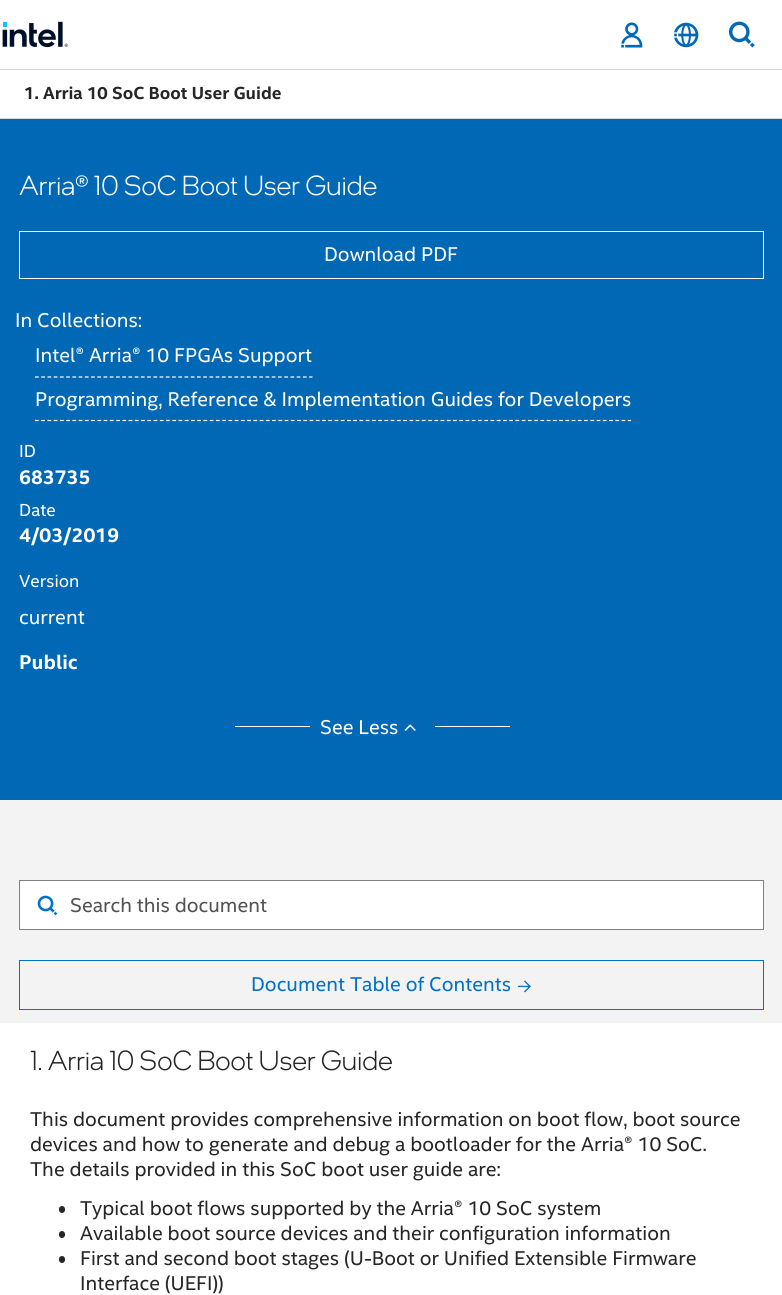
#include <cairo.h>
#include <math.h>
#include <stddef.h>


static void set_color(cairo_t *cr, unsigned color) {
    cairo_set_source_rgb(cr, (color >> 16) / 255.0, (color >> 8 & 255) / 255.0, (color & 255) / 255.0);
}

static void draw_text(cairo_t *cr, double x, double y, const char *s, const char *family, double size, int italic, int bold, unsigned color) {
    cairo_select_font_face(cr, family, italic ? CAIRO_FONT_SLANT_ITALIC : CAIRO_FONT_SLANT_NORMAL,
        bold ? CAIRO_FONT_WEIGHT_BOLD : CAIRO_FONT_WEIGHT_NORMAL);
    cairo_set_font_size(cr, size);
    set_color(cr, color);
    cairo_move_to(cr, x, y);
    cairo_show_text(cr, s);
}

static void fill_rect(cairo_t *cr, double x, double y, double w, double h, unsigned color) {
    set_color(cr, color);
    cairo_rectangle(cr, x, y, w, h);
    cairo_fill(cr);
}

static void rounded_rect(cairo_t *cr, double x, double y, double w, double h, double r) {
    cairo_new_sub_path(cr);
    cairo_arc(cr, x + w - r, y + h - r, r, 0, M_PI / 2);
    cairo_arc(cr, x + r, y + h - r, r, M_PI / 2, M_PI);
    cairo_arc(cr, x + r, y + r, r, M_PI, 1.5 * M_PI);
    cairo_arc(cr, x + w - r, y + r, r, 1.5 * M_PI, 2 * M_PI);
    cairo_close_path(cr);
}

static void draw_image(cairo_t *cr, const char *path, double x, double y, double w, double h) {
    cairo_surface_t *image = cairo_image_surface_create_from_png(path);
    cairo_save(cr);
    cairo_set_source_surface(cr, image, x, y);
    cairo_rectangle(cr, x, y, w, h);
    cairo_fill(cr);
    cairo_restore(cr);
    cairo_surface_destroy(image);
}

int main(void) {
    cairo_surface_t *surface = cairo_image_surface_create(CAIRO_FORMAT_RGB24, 782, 1295);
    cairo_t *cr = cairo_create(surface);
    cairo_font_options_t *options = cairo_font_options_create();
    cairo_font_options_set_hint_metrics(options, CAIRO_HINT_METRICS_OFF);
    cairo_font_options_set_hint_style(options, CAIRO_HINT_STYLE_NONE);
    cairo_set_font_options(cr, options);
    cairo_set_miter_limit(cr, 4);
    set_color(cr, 0xFFFFFF);
    cairo_paint(cr);
    fill_rect(cr, 0, 69, 782, 1, 0xD7D7D7);
    draw_image(cr, "assets/img1.png", 2, 21, 66, 27);
    draw_image(cr, "assets/img2.png", 621, 22, 22, 26);
    draw_image(cr, "assets/img3.png", 674, 22, 25, 26);
    draw_image(cr, "assets/img4.png", 729, 21, 26, 27);
    fill_rect(cr, 0, 118, 782, 1, 0xD7D7D7);
    draw_text(cr, 24, 99, "1. Arria 10 SoC Boot User Guide", "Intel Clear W", 17.5, 0, 1, 0x262626);
    fill_rect(cr, 0, 119, 782, 681, 0x0068B5);
    draw_text(cr, 19, 195, "Arria® 10 SoC Boot User Guide", "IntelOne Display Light", 27.5, 0, 0, 0xFFFFFF);
    cairo_rectangle(cr, 19.5, 231.5, 744, 47);
    cairo_set_line_width(cr, 1);
    cairo_stroke(cr);
    draw_text(cr, 324, 261, "Download PDF", "Intel Clear W", 20, 0, 0, 0xFFFFFF);
    draw_text(cr, 15, 327, "In Collections:", "Intel Clear W", 20, 0, 0, 0xFFFFFF);
    cairo_new_path(cr);
    cairo_move_to(cr, 35, 377);
    cairo_line_to(cr, 312.5, 377);
    cairo_set_line_width(cr, 1.2);
    cairo_set_dash(cr, (double[]){3.75, 2.48}, 2, 0);
    cairo_stroke(cr);
    draw_text(cr, 35, 362, "Intel® Arria® 10 FPGAs Support", "Intel Clear W", 20, 0, 0, 0xFFFFFF);
    cairo_new_path(cr);
    cairo_move_to(cr, 35, 420.5);
    cairo_line_to(cr, 631, 420.5);
    cairo_set_dash(cr, (double[]){3.75, 2.49}, 2, 0);
    cairo_stroke(cr);
    draw_text(cr, 35, 406, "Programming, Reference & Implementation Guides for Developers", "Intel Clear W", 20, 0, 0, 0xFFFFFF);
    draw_text(cr, 19, 457, "ID", "Intel Clear W", 17.5, 0, 0, 0xFFFFFF);
    draw_text(cr, 19, 484, "683735", "Intel Clear W", 20, 0, 1, 0xFFFFFF);
    draw_text(cr, 19, 516, "Date", "Intel Clear W", 17.5, 0, 0, 0xFFFFFF);
    draw_text(cr, 19, 542, "4/03/2019", "Intel Clear W", 20, 0, 1, 0xFFFFFF);
    draw_text(cr, 19, 587, "Version", "Intel Clear W", 17.5, 0, 0, 0xFFFFFF);
    draw_text(cr, 19, 624, "current", "Intel Clear W", 20, 0, 0, 0xFFFFFF);
    draw_text(cr, 19, 669, "Public", "Intel Clear W", 20, 0, 1, 0xFFFFFF);
    fill_rect(cr, 235, 726, 75, 1, 0xFFFFFF);
    draw_text(cr, 320, 734, "See Less", "Intel Clear W", 20, 0, 0, 0xFFFFFF);
    draw_image(cr, "assets/img5.png", 404, 724, 12, 7);
    fill_rect(cr, 435, 726, 75, 1, 0xFFFFFF);
    fill_rect(cr, 0, 800, 782, 223, 0xF3F3F3);
    set_color(cr, 0xFFFFFF);
    cairo_rectangle(cr, 19.5, 880.5, 744, 49);
    cairo_fill_preserve(cr);
    set_color(cr, 0x808080);
    cairo_set_line_width(cr, 1);
    cairo_set_dash(cr, NULL, 0, 0);
    cairo_stroke(cr);
    draw_image(cr, "assets/img6.png", 37, 895, 21, 21);
    draw_text(cr, 70, 912, "Search this document", "Intel Clear W", 20, 0, 0, 0x525252);
    cairo_rectangle(cr, 19.5, 960.5, 744, 49);
    set_color(cr, 0x0071C5);
    cairo_stroke(cr);
    draw_text(cr, 251, 991, "Document Table of Contents", "Intel Clear W", 20, 0, 0, 0x0071C5);
    draw_image(cr, "assets/img7.png", 517, 980, 14, 13);
    draw_text(cr, 30, 1070, "1. Arria 10 SoC Boot User Guide", "IntelOne Display Light", 27.5, 0, 0, 0x262626);
    draw_text(cr, 30, 1126, "This document provides comprehensive information on boot flow, boot source", "Intel Clear W", 20, 0, 0, 0x262626);
    draw_text(cr, 30, 1151, "devices and how to generate and debug a bootloader for the Arria® 10 SoC.", "Intel Clear W", 20, 0, 0, 0x262626);
    draw_text(cr, 30, 1176, "The details provided in this SoC boot user guide are:", "Intel Clear W", 20, 0, 0, 0x262626);
    rounded_rect(cr, 59, 1206, 6, 7, 3);
    cairo_fill(cr);
    draw_text(cr, 80, 1215, "Typical boot flows supported by the Arria® 10 SoC system", "Intel Clear W", 20, 0, 0, 0x262626);
    rounded_rect(cr, 59, 1231, 6, 7, 3);
    cairo_fill(cr);
    draw_text(cr, 80, 1240, "Available boot source devices and their configuration information", "Intel Clear W", 20, 0, 0, 0x262626);
    rounded_rect(cr, 59, 1256, 6, 7, 3);
    cairo_fill(cr);
    draw_text(cr, 80, 1265, "First and second boot stages (U-Boot or Unified Extensible Firmware", "Intel Clear W", 20, 0, 0, 0x262626);
    draw_text(cr, 80, 1290, "Interface (UEFI))", "Intel Clear W", 20, 0, 0, 0x262626);
    cairo_surface_write_to_png(surface, "output.png");
    cairo_font_options_destroy(options);
    cairo_destroy(cr);
    cairo_surface_destroy(surface);
    return 0;
}
